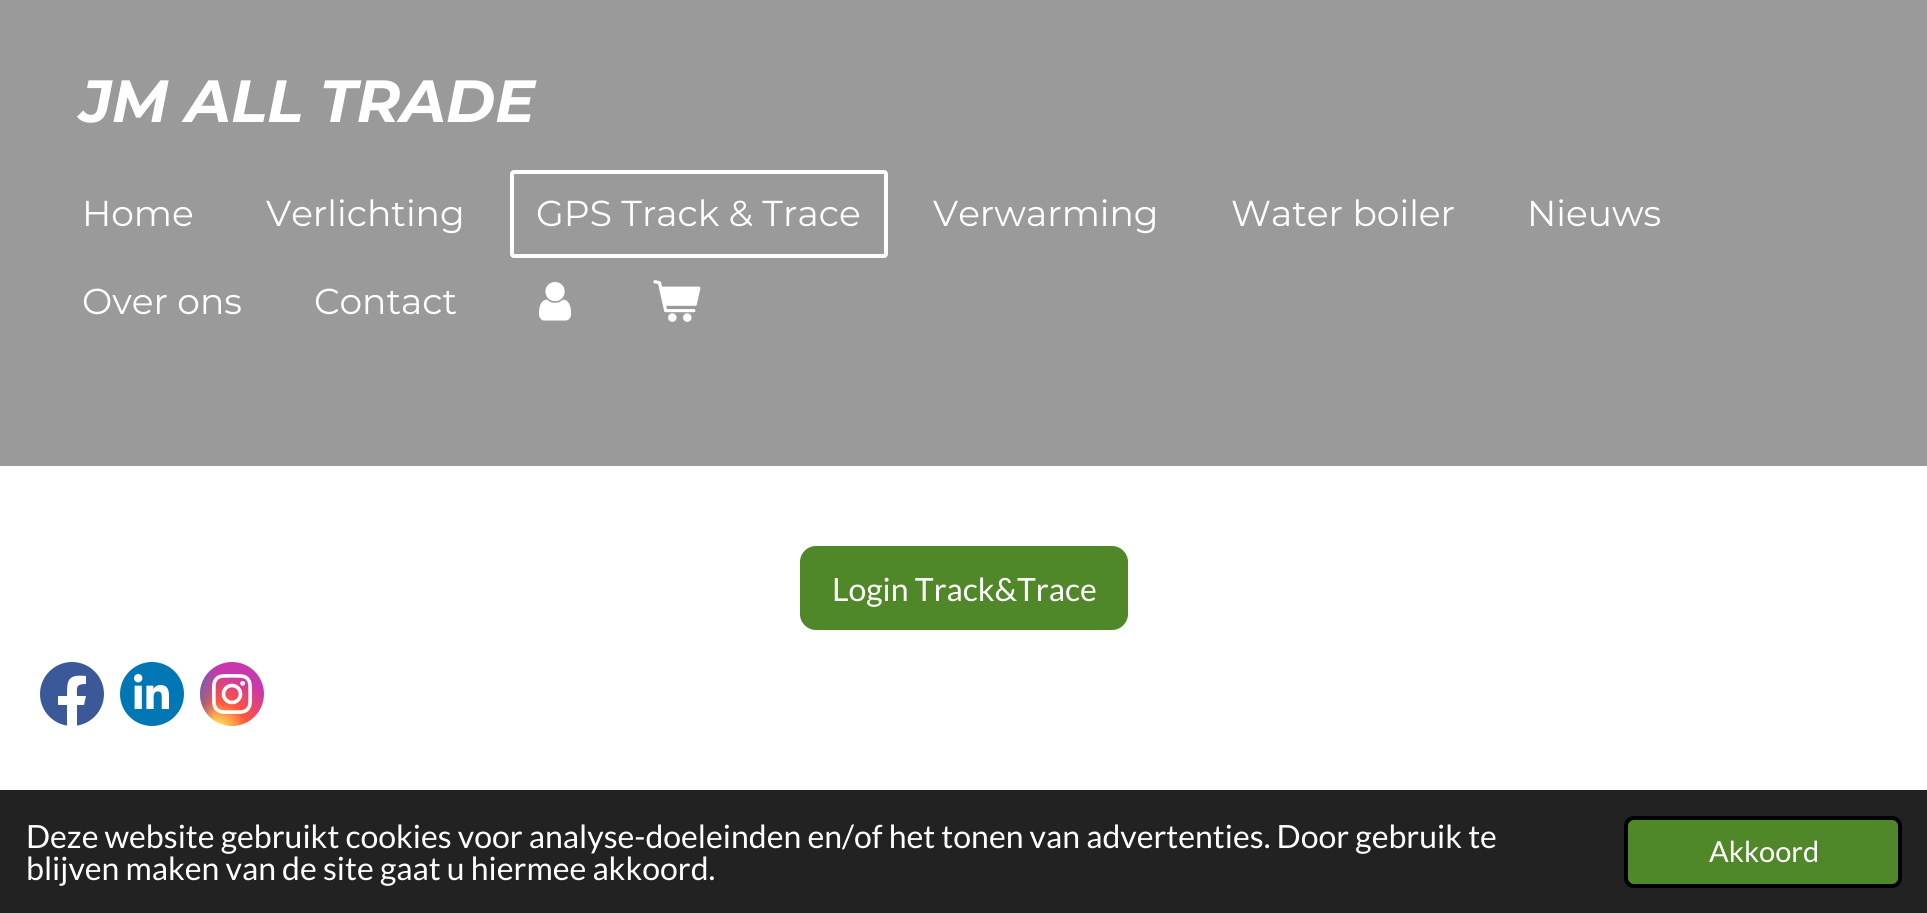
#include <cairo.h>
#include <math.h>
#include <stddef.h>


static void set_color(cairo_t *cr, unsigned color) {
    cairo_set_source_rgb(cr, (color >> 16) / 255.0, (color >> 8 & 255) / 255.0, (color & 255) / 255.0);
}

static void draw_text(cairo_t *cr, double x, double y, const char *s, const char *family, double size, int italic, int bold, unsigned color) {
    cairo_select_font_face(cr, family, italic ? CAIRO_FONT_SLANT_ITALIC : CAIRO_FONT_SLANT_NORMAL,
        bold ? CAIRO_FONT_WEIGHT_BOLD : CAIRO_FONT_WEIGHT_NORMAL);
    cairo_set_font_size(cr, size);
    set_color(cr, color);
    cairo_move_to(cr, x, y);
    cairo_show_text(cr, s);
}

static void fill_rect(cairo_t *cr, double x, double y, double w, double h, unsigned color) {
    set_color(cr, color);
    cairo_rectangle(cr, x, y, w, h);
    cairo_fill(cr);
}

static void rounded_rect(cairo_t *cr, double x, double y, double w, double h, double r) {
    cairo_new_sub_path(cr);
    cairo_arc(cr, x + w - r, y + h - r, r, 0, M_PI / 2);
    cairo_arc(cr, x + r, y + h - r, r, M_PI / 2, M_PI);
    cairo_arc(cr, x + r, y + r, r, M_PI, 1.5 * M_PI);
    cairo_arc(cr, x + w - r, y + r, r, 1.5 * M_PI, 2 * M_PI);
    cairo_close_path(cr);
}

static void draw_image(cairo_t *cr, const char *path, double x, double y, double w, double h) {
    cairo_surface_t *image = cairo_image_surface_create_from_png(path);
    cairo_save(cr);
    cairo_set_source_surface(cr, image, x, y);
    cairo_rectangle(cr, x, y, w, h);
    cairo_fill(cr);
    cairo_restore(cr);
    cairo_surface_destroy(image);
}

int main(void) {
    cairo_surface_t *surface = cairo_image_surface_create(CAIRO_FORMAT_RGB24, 1927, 913);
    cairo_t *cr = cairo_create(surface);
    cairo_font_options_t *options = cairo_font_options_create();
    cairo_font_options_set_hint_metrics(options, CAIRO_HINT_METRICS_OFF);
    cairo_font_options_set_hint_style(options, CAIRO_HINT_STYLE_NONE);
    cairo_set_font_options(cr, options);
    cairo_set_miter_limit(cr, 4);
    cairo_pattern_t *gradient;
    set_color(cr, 0xFFFFFF);
    cairo_paint(cr);
    fill_rect(cr, 0, 0, 1927, 466, 0x9A9A9A);
    draw_text(cr, 80, 122, "JM ALL TRADE", "Montserrat", 59.5, 1, 1, 0xFFFFFF);
    draw_text(cr, 82, 226, "Home", "Montserrat", 36, 0, 0, 0xFFFFFF);
    draw_text(cr, 266, 226, "Verlichting", "Montserrat", 36, 0, 0, 0xFFFFFF);
    rounded_rect(cr, 512, 172, 374, 84, 2);
    cairo_set_line_width(cr, 4);
    cairo_stroke(cr);
    draw_text(cr, 536, 226, "GPS Track & Trace", "Montserrat", 36, 0, 0, 0xFFFFFF);
    draw_text(cr, 933, 226, "Verwarming", "Montserrat", 36, 0, 0, 0xFFFFFF);
    draw_text(cr, 1231, 226, "Water boiler", "Montserrat", 36, 0, 0, 0xFFFFFF);
    draw_text(cr, 1527, 226, "Nieuws", "Montserrat", 36, 0, 0, 0xFFFFFF);
    draw_text(cr, 82, 314, "Over ons", "Montserrat", 36, 0, 0, 0xFFFFFF);
    draw_text(cr, 314, 314, "Contact", "Montserrat", 36, 0, 0, 0xFFFFFF);
    draw_image(cr, "assets/img1.png", 539, 282, 33, 39);
    draw_image(cr, "assets/img2.png", 653, 280, 48, 42);
    set_color(cr, 0x508729);
    rounded_rect(cr, 800, 546, 328, 84, 16);
    cairo_fill(cr);
    draw_text(cr, 832, 601, "Login Track&Trace", "Lato", 32, 0, 0, 0xFFFFFF);
    set_color(cr, 0x3B5998);
    cairo_new_path(cr);
    cairo_arc(cr, 72, 694, 32, 0, 2 * M_PI);
    cairo_fill(cr);
    set_color(cr, 0xFFFFFF);
    cairo_new_path(cr);
    cairo_move_to(cr, 84, 705);
    cairo_line_to(cr, 77, 705);
    cairo_line_to(cr, 77, 726);
    cairo_curve_to(cr, 74, 726, 70, 726, 67, 726);
    cairo_line_to(cr, 67, 705);
    cairo_line_to(cr, 58, 705);
    cairo_line_to(cr, 58, 696);
    cairo_line_to(cr, 67, 696);
    cairo_curve_to(cr, 67, 681, 67, 674, 86, 676);
    cairo_line_to(cr, 86, 684);
    cairo_curve_to(cr, 75, 684, 77, 688, 77, 696);
    cairo_line_to(cr, 86, 696);
    cairo_close_path(cr);
    cairo_fill(cr);
    set_color(cr, 0x0077B5);
    cairo_arc(cr, 152, 694, 32, 0, 2 * M_PI);
    cairo_fill(cr);
    draw_image(cr, "assets/img3.png", 134, 674, 35, 35);
    gradient = cairo_pattern_create_radial(0, 0, 0, 0, 0, 1);
    cairo_pattern_set_matrix(gradient, &(cairo_matrix_t){1.0 / 62, 0, 0, 1.0 / 58, -1.0 * 217 / 62, -1.0 * 730 / 58});
    cairo_pattern_add_color_stop_rgba(gradient, 0, 1, 0.867, 0.333, 1);
    cairo_pattern_add_color_stop_rgba(gradient, 0.1, 1, 0.867, 0.333, 1);
    cairo_pattern_add_color_stop_rgba(gradient, 0.5, 1, 0.329, 0.243, 1);
    cairo_pattern_add_color_stop_rgba(gradient, 1, 0.784, 0.216, 0.671, 1);
    cairo_set_source(cr, gradient);
    cairo_pattern_destroy(gradient);
    cairo_arc(cr, 232, 694, 32, 0, 2 * M_PI);
    cairo_fill(cr);
    gradient = cairo_pattern_create_radial(0, 0, 0, 0, 0, 1);
    cairo_pattern_set_matrix(gradient, &(cairo_matrix_t){1.0 / 28, 0, 0, 1.0 / 115, -1.0 * 189 / 28, -1.0 * 667 / 115});
    cairo_pattern_add_color_stop_rgba(gradient, 0, 0.216, 0.443, 0.784, 1);
    cairo_pattern_add_color_stop_rgba(gradient, 0.13, 0.216, 0.443, 0.784, 1);
    cairo_pattern_add_color_stop_rgba(gradient, 1, 0.216, 0.443, 0.784, 0);
    cairo_set_source(cr, gradient);
    cairo_pattern_destroy(gradient);
    cairo_arc(cr, 232, 694, 32, 0, 2 * M_PI);
    cairo_fill(cr);
    draw_image(cr, "assets/img4.png", 212, 674, 40, 40);
    fill_rect(cr, 0, 790, 1927, 123, 0x222222);
    draw_text(cr, 26, 848, "Deze website gebruikt cookies voor analyse-doeleinden en/of het tonen van advertenties. Door gebruik te", "Lato", 32, 0, 0, 0xFFFFFF);
    draw_text(cr, 26, 880, "blijven maken van de site gaat u hiermee akkoord.", "Lato", 32, 0, 0, 0xFFFFFF);
    set_color(cr, 0x508729);
    rounded_rect(cr, 1626, 818, 274, 68, 8);
    cairo_fill_preserve(cr);
    set_color(cr, 0x000000);
    cairo_stroke(cr);
    draw_text(cr, 1709, 862, "Akkoord", "Lato", 29, 0, 0, 0xFFFFFF);
    cairo_surface_write_to_png(surface, "output.png");
    cairo_font_options_destroy(options);
    cairo_destroy(cr);
    cairo_surface_destroy(surface);
    return 0;
}
